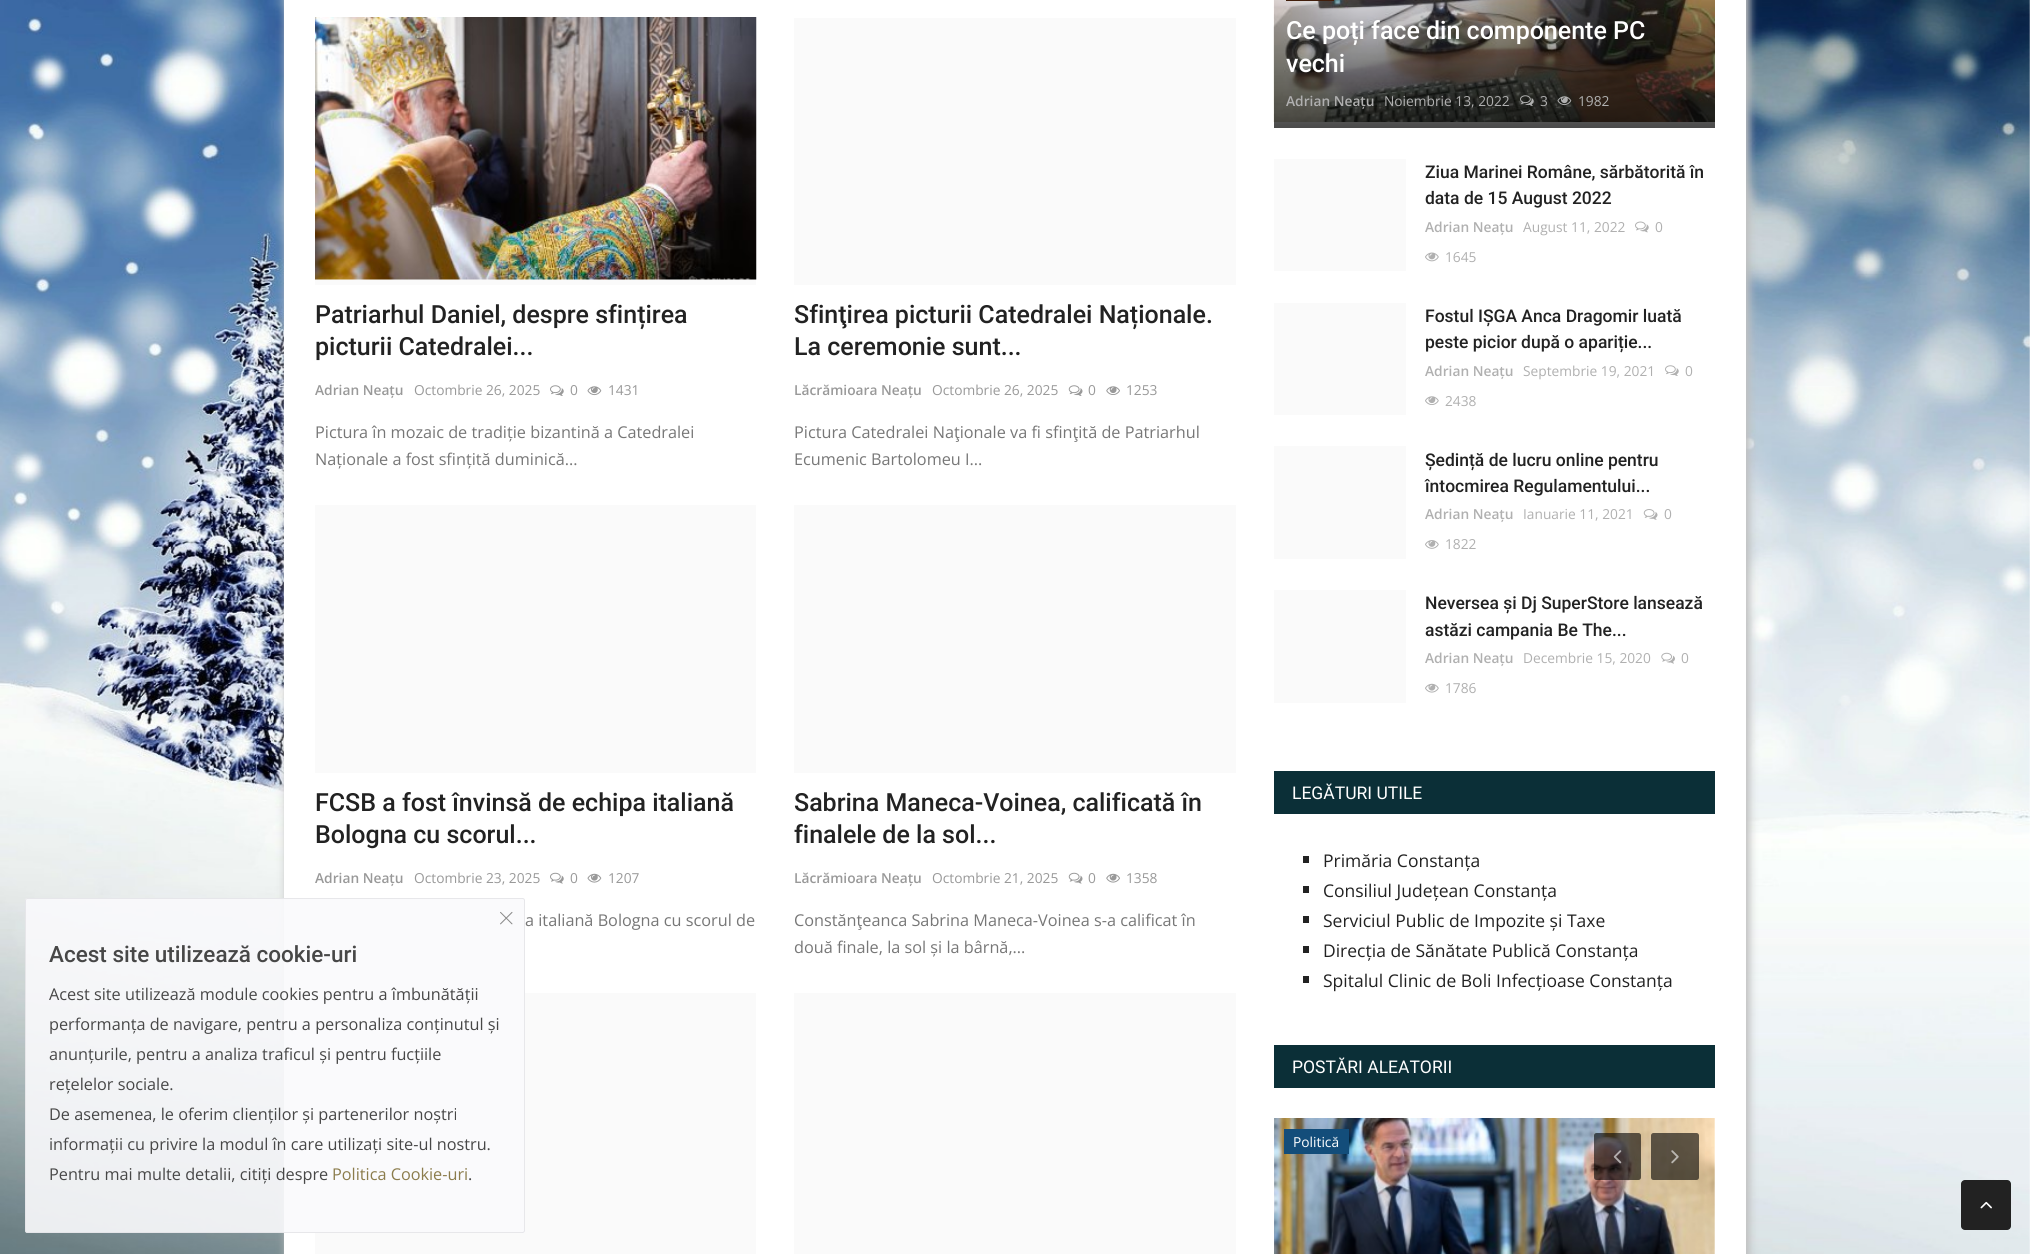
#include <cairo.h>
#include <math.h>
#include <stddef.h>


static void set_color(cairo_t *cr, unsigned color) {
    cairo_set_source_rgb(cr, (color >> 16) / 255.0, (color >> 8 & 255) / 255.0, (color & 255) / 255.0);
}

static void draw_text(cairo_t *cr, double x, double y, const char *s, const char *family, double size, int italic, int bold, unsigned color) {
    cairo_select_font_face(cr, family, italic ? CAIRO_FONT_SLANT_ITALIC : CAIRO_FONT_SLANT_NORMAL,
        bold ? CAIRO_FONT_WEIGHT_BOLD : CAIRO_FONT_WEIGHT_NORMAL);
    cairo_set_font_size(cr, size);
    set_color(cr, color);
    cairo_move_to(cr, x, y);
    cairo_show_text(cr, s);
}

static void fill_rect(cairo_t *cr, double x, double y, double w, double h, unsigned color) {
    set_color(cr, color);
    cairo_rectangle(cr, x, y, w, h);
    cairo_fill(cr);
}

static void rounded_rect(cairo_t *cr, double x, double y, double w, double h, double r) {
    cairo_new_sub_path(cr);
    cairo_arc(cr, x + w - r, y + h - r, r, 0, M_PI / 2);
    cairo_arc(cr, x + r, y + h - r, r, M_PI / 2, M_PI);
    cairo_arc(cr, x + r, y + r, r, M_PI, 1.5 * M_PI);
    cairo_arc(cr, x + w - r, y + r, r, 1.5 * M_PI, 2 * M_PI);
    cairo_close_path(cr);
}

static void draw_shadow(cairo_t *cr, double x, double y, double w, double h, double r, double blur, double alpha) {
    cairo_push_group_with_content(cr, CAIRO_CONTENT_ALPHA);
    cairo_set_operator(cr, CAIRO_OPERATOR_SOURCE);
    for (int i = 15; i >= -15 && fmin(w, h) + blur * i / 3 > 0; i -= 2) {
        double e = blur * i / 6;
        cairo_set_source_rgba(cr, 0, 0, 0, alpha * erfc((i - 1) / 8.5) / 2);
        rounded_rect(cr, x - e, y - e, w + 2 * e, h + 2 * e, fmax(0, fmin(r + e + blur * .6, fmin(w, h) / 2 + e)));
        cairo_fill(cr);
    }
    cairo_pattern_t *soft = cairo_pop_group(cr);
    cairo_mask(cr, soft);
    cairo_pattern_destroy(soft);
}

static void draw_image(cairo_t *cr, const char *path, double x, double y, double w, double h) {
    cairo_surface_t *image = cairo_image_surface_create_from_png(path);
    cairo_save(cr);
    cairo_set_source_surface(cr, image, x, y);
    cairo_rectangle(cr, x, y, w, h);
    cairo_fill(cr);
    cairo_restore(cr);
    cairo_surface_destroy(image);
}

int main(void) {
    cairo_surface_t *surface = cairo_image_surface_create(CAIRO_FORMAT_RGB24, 2030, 1254);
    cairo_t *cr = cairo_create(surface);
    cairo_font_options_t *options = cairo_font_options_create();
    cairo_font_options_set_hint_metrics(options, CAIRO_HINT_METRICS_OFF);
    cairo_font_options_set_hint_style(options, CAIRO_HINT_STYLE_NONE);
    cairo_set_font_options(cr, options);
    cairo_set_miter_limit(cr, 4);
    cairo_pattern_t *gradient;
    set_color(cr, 0xFFFFFF);
    cairo_paint(cr);
    draw_image(cr, "assets/img1.png", 0, 0, 2030, 1254);
    set_color(cr, 0xC0C0C0);
    draw_shadow(cr, 285, -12, 1465, 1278, 0, 4, 1);
    fill_rect(cr, 284, 0, 1462, 1254, 0xFFFFFF);
    fill_rect(cr, 315, 993, 441, 261, 0xFAFAFA);
    cairo_set_source_rgba(cr, 0.98, 0.98, 0.988, 0.9);
    rounded_rect(cr, 25, 898, 500, 335, 2.5);
    cairo_fill(cr);
    rounded_rect(cr, 25.5, 898.5, 499, 334, 2);
    cairo_set_source_rgba(cr, 0.898, 0.898, 0.91, 0.9);
    cairo_set_line_width(cr, 1);
    cairo_stroke(cr);
    draw_image(cr, "assets/img2.png", 500, 911, 13, 14);
    draw_text(cr, 49, 962, "Acest site utilizează cookie-uri", "Roboto Medium", 22.5, 0, 0, 0x474747);
    draw_text(cr, 49, 1000, "Acest site utilizează module cookies pentru a îmbunătății", "Open Sans", 16.25, 0, 0, 0x474747);
    draw_text(cr, 49, 1030, "performanța de navigare, pentru a personaliza conținutul și", "Open Sans", 16.25, 0, 0, 0x474747);
    draw_text(cr, 49, 1060, "anunțurile, pentru a analiza traficul și pentru fucțiile", "Open Sans", 16.25, 0, 0, 0x474747);
    draw_text(cr, 49, 1090, "rețelelor sociale.", "Open Sans", 16.25, 0, 0, 0x474747);
    draw_text(cr, 49, 1120, "De asemenea, le oferim clienților și partenerilor noștri", "Open Sans", 16.25, 0, 0, 0x474747);
    draw_text(cr, 49, 1150, "informații cu privire la modul în care utilizați site-ul nostru.", "Open Sans", 16.25, 0, 0, 0x474747);
    draw_text(cr, 49, 1180, "Pentru mai multe detalii, citiți despre", "Open Sans", 16.25, 0, 0, 0x474747);
    draw_text(cr, 332, 1180, "Politica Cookie-uri", "Open Sans", 16.25, 0, 0, 0x8B7C4C);
    draw_text(cr, 468, 1180, ".", "Open Sans", 16.25, 0, 0, 0x474747);
    fill_rect(cr, 315, 279, 441, 6, 0xFAFAFA);
    draw_image(cr, "assets/img3.png", 315, 17, 442, 263);
    draw_text(cr, 315, 323, "Patriarhul Daniel, despre sfințirea", "Roboto Medium", 25, 0, 0, 0x222222);
    draw_text(cr, 315, 355, "picturii Catedralei...", "Roboto Medium", 25, 0, 0, 0x222222);
    draw_text(cr, 315, 395, "Adrian Neațu", "Open Sans SemiBold", 13.75, 0, 0, 0x999999);
    draw_text(cr, 414, 395, "Octombrie 26, 2025", "Open Sans", 13.75, 0, 0, 0x999999);
    draw_image(cr, "assets/img4.png", 550, 385, 14, 11);
    draw_text(cr, 570, 395, "0", "Open Sans", 13.75, 0, 0, 0x999999);
    draw_image(cr, "assets/img5.png", 587, 386, 15, 10);
    draw_text(cr, 608, 395, "1431", "Open Sans", 13.75, 0, 0, 0x999999);
    draw_text(cr, 315, 438, "Pictura în mozaic de tradiție bizantină a Catedralei", "Open Sans", 16.25, 0, 0, 0x777777);
    draw_text(cr, 315, 465, "Naționale a fost sfințită duminică...", "Open Sans", 16.25, 0, 0, 0x777777);
    fill_rect(cr, 794, 18, 442, 267, 0xFAFAFA);
    draw_text(cr, 794, 323, "Sfinţirea picturii Catedralei Naționale.", "Roboto Medium", 25, 0, 0, 0x222222);
    draw_text(cr, 794, 355, "La ceremonie sunt...", "Roboto Medium", 25, 0, 0, 0x222222);
    draw_text(cr, 794, 395, "Lăcrămioara Neațu", "Open Sans SemiBold", 13.75, 0, 0, 0x999999);
    draw_text(cr, 932, 395, "Octombrie 26, 2025", "Open Sans", 13.75, 0, 0, 0x999999);
    draw_image(cr, "assets/img6.png", 1068, 385, 15, 11);
    draw_text(cr, 1088, 395, "0", "Open Sans", 13.75, 0, 0, 0x999999);
    draw_image(cr, "assets/img7.png", 1106, 386, 14, 9);
    draw_text(cr, 1126, 395, "1253", "Open Sans", 13.75, 0, 0, 0x999999);
    draw_text(cr, 794, 438, "Pictura Catedralei Naţionale va fi sfinţită de Patriarhul", "Open Sans", 16.25, 0, 0, 0x777777);
    draw_text(cr, 794, 465, "Ecumenic Bartolomeu I...", "Open Sans", 16.25, 0, 0, 0x777777);
    fill_rect(cr, 315, 505, 441, 268, 0xFAFAFA);
    draw_text(cr, 315, 811, "FCSB a fost învinsă de echipa italiană", "Roboto Medium", 25, 0, 0, 0x222222);
    draw_text(cr, 315, 843, "Bologna cu scorul...", "Roboto Medium", 25, 0, 0, 0x222222);
    draw_text(cr, 315, 883, "Adrian Neațu", "Open Sans SemiBold", 13.75, 0, 0, 0x999999);
    draw_text(cr, 414, 883, "Octombrie 23, 2025", "Open Sans", 13.75, 0, 0, 0x999999);
    draw_image(cr, "assets/img8.png", 550, 872, 14, 12);
    draw_text(cr, 570, 883, "0", "Open Sans", 13.75, 0, 0, 0x999999);
    draw_image(cr, "assets/img9.png", 587, 873, 15, 10);
    draw_text(cr, 608, 883, "1207", "Open Sans", 13.75, 0, 0, 0x999999);
    draw_text(cr, 525, 926, "a italiană Bologna cu scorul de", "Open Sans", 16.25, 0, 0, 0x777777);
    fill_rect(cr, 794, 505, 442, 268, 0xFAFAFA);
    draw_text(cr, 794, 811, "Sabrina Maneca-Voinea, calificată în", "Roboto Medium", 25, 0, 0, 0x222222);
    draw_text(cr, 794, 843, "finalele de la sol...", "Roboto Medium", 25, 0, 0, 0x222222);
    draw_text(cr, 794, 883, "Lăcrămioara Neațu", "Open Sans SemiBold", 13.75, 0, 0, 0x999999);
    draw_text(cr, 932, 883, "Octombrie 21, 2025", "Open Sans", 13.75, 0, 0, 0x999999);
    draw_image(cr, "assets/img10.png", 1068, 872, 15, 12);
    draw_text(cr, 1088, 883, "0", "Open Sans", 13.75, 0, 0, 0x999999);
    draw_image(cr, "assets/img11.png", 1106, 873, 14, 10);
    draw_text(cr, 1126, 883, "1358", "Open Sans", 13.75, 0, 0, 0x999999);
    draw_text(cr, 794, 926, "Constănţeanca Sabrina Maneca-Voinea s-a calificat în", "Open Sans", 16.25, 0, 0, 0x777777);
    draw_text(cr, 794, 953, "două finale, la sol și la bârnă,...", "Open Sans", 16.25, 0, 0, 0x777777);
    fill_rect(cr, 794, 993, 442, 261, 0xFAFAFA);
    fill_rect(cr, 1274, 122, 441, 6, 0xFAFAFA);
    draw_image(cr, "assets/img12.png", 1273, 0, 442, 122);
    gradient = cairo_pattern_create_linear(1494, -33, 1494, 128);
    cairo_pattern_add_color_stop_rgba(gradient, 0, 0, 0, 0, 0);
    cairo_pattern_add_color_stop_rgba(gradient, 0.5, 0, 0, 0, 0.34);
    cairo_pattern_add_color_stop_rgba(gradient, 1, 0, 0, 0, 0.7);
    cairo_set_source(cr, gradient);
    cairo_pattern_destroy(gradient);
    cairo_rectangle(cr, 1274, 0, 441, 128);
    cairo_fill(cr);
    fill_rect(cr, 1286, 0, 48, 1, 0x421F0B);
    draw_text(cr, 1286, 39, "Ce poți face din componente PC", "Roboto Medium", 25, 0, 0, 0xFFFFFF);
    draw_text(cr, 1286, 72, "vechi", "Roboto Medium", 25, 0, 0, 0xFFFFFF);
    draw_text(cr, 1286, 106, "Adrian Neațu", "Open Sans SemiBold", 13.75, 0, 0, 0xB0B0B0);
    draw_text(cr, 1384, 106, "Noiembrie 13, 2022", "Open Sans", 13.75, 0, 0, 0xB0B0B0);
    draw_image(cr, "assets/img13.png", 1520, 95, 14, 12);
    draw_text(cr, 1540, 106, "3", "Open Sans", 13.75, 0, 0, 0xB0B0B0);
    draw_image(cr, "assets/img14.png", 1557, 96, 15, 10);
    draw_text(cr, 1578, 106, "1982", "Open Sans", 13.75, 0, 0, 0xB0B0B0);
    fill_rect(cr, 1274, 159, 132, 112, 0xFAFAFA);
    draw_text(cr, 1425, 178, "Ziua Marinei Române, sărbătorită în", "Roboto Medium", 17.5, 0, 0, 0x222222);
    draw_text(cr, 1425, 204, "data de 15 August 2022", "Roboto Medium", 17.5, 0, 0, 0x222222);
    draw_text(cr, 1425, 232, "Adrian Neațu", "Open Sans SemiBold", 13.75, 0, 0, 0xB0B0B0);
    draw_text(cr, 1523, 232, "August 11, 2022", "Open Sans", 13.75, 0, 0, 0xB0B0B0);
    draw_image(cr, "assets/img15.png", 1635, 221, 14, 12);
    draw_text(cr, 1655, 232, "0", "Open Sans", 13.75, 0, 0, 0xB0B0B0);
    draw_image(cr, "assets/img16.png", 1425, 252, 14, 10);
    draw_text(cr, 1445, 262, "1645", "Open Sans", 13.75, 0, 0, 0xB0B0B0);
    fill_rect(cr, 1274, 303, 132, 112, 0xFAFAFA);
    draw_text(cr, 1425, 322, "Fostul IȘGA Anca Dragomir luată", "Roboto Medium", 17.5, 0, 0, 0x222222);
    draw_text(cr, 1425, 348, "peste picior după o apariție...", "Roboto Medium", 17.5, 0, 0, 0x222222);
    draw_text(cr, 1425, 376, "Adrian Neațu", "Open Sans SemiBold", 13.75, 0, 0, 0xB0B0B0);
    draw_text(cr, 1523, 376, "Septembrie 19, 2021", "Open Sans", 13.75, 0, 0, 0xB0B0B0);
    draw_image(cr, "assets/img17.png", 1665, 365, 14, 11);
    draw_text(cr, 1685, 376, "0", "Open Sans", 13.75, 0, 0, 0xB0B0B0);
    draw_image(cr, "assets/img18.png", 1425, 396, 14, 9);
    draw_text(cr, 1445, 406, "2438", "Open Sans", 13.75, 0, 0, 0xB0B0B0);
    fill_rect(cr, 1274, 446, 132, 113, 0xFAFAFA);
    draw_text(cr, 1425, 466, "Ședință de lucru online pentru", "Roboto Medium", 17.5, 0, 0, 0x222222);
    draw_text(cr, 1425, 492, "întocmirea Regulamentului...", "Roboto Medium", 17.5, 0, 0, 0x222222);
    draw_text(cr, 1425, 519, "Adrian Neațu", "Open Sans SemiBold", 13.75, 0, 0, 0xB0B0B0);
    draw_text(cr, 1523, 519, "Ianuarie 11, 2021", "Open Sans", 13.75, 0, 0, 0xB0B0B0);
    draw_image(cr, "assets/img19.png", 1643, 509, 15, 11);
    draw_text(cr, 1664, 519, "0", "Open Sans", 13.75, 0, 0, 0xB0B0B0);
    draw_image(cr, "assets/img20.png", 1425, 540, 14, 9);
    draw_text(cr, 1445, 549, "1822", "Open Sans", 13.75, 0, 0, 0xB0B0B0);
    fill_rect(cr, 1274, 590, 132, 113, 0xFAFAFA);
    draw_text(cr, 1425, 609, "Neversea și Dj SuperStore lansează", "Roboto Medium", 17.5, 0, 0, 0x222222);
    draw_text(cr, 1425, 636, "astăzi campania Be The...", "Roboto Medium", 17.5, 0, 0, 0x222222);
    draw_text(cr, 1425, 663, "Adrian Neațu", "Open Sans SemiBold", 13.75, 0, 0, 0xB0B0B0);
    draw_text(cr, 1523, 663, "Decembrie 15, 2020", "Open Sans", 13.75, 0, 0, 0xB0B0B0);
    draw_image(cr, "assets/img21.png", 1661, 652, 14, 12);
    draw_text(cr, 1681, 663, "0", "Open Sans", 13.75, 0, 0, 0xB0B0B0);
    draw_image(cr, "assets/img22.png", 1425, 683, 14, 10);
    draw_text(cr, 1445, 693, "1786", "Open Sans", 13.75, 0, 0, 0xB0B0B0);
    fill_rect(cr, 1274, 771, 441, 43, 0x0B2F37);
    draw_text(cr, 1292, 799, "LEGĂTURI UTILE", "Roboto", 17.5, 0, 0, 0xFFFFFF);
    fill_rect(cr, 1303, 856, 6, 7, 0x222222);
    draw_text(cr, 1323, 867, "Primăria Constanța", "Open Sans", 17.5, 0, 0, 0x222222);
    fill_rect(cr, 1303, 886, 6, 7, 0x222222);
    draw_text(cr, 1323, 897, "Consiliul Județean Constanța", "Open Sans", 17.5, 0, 0, 0x222222);
    fill_rect(cr, 1303, 916, 6, 7, 0x222222);
    draw_text(cr, 1323, 927, "Serviciul Public de Impozite și Taxe", "Open Sans", 17.5, 0, 0, 0x222222);
    fill_rect(cr, 1303, 946, 6, 7, 0x222222);
    draw_text(cr, 1323, 957, "Direcția de Sănătate Publică Constanța", "Open Sans", 17.5, 0, 0, 0x222222);
    fill_rect(cr, 1303, 976, 6, 7, 0x222222);
    draw_text(cr, 1323, 987, "Spitalul Clinic de Boli Infecțioase Constanța", "Open Sans", 17.5, 0, 0, 0x222222);
    fill_rect(cr, 1274, 1045, 441, 43, 0x0B2F37);
    draw_text(cr, 1292, 1073, "POSTĂRI ALEATORII", "Roboto", 17.5, 0, 0, 0xFFFFFF);
    draw_image(cr, "assets/img23.png", 1274, 1118, 441, 136);
    fill_rect(cr, 1284, 1129, 65, 25, 0x134D7A);
    draw_text(cr, 1293, 1147, "Politică", "Open Sans", 13.75, 0, 0, 0xFFFFFF);
    cairo_set_source_rgba(cr, 0.004, 0.004, 0.004, 0.6);
    rounded_rect(cr, 1594, 1133, 47, 47, 2.5);
    cairo_fill(cr);
    draw_image(cr, "assets/img24.png", 1613, 1150, 9, 14);
    rounded_rect(cr, 1651, 1133, 48, 47, 2.5);
    cairo_fill(cr);
    draw_image(cr, "assets/img25.png", 1671, 1150, 8, 14);
    set_color(cr, 0x222222);
    rounded_rect(cr, 1961, 1180, 50, 50, 4);
    cairo_fill(cr);
    draw_image(cr, "assets/img26.png", 1980, 1201, 12, 8);
    cairo_surface_write_to_png(surface, "output.png");
    cairo_font_options_destroy(options);
    cairo_destroy(cr);
    cairo_surface_destroy(surface);
    return 0;
}
